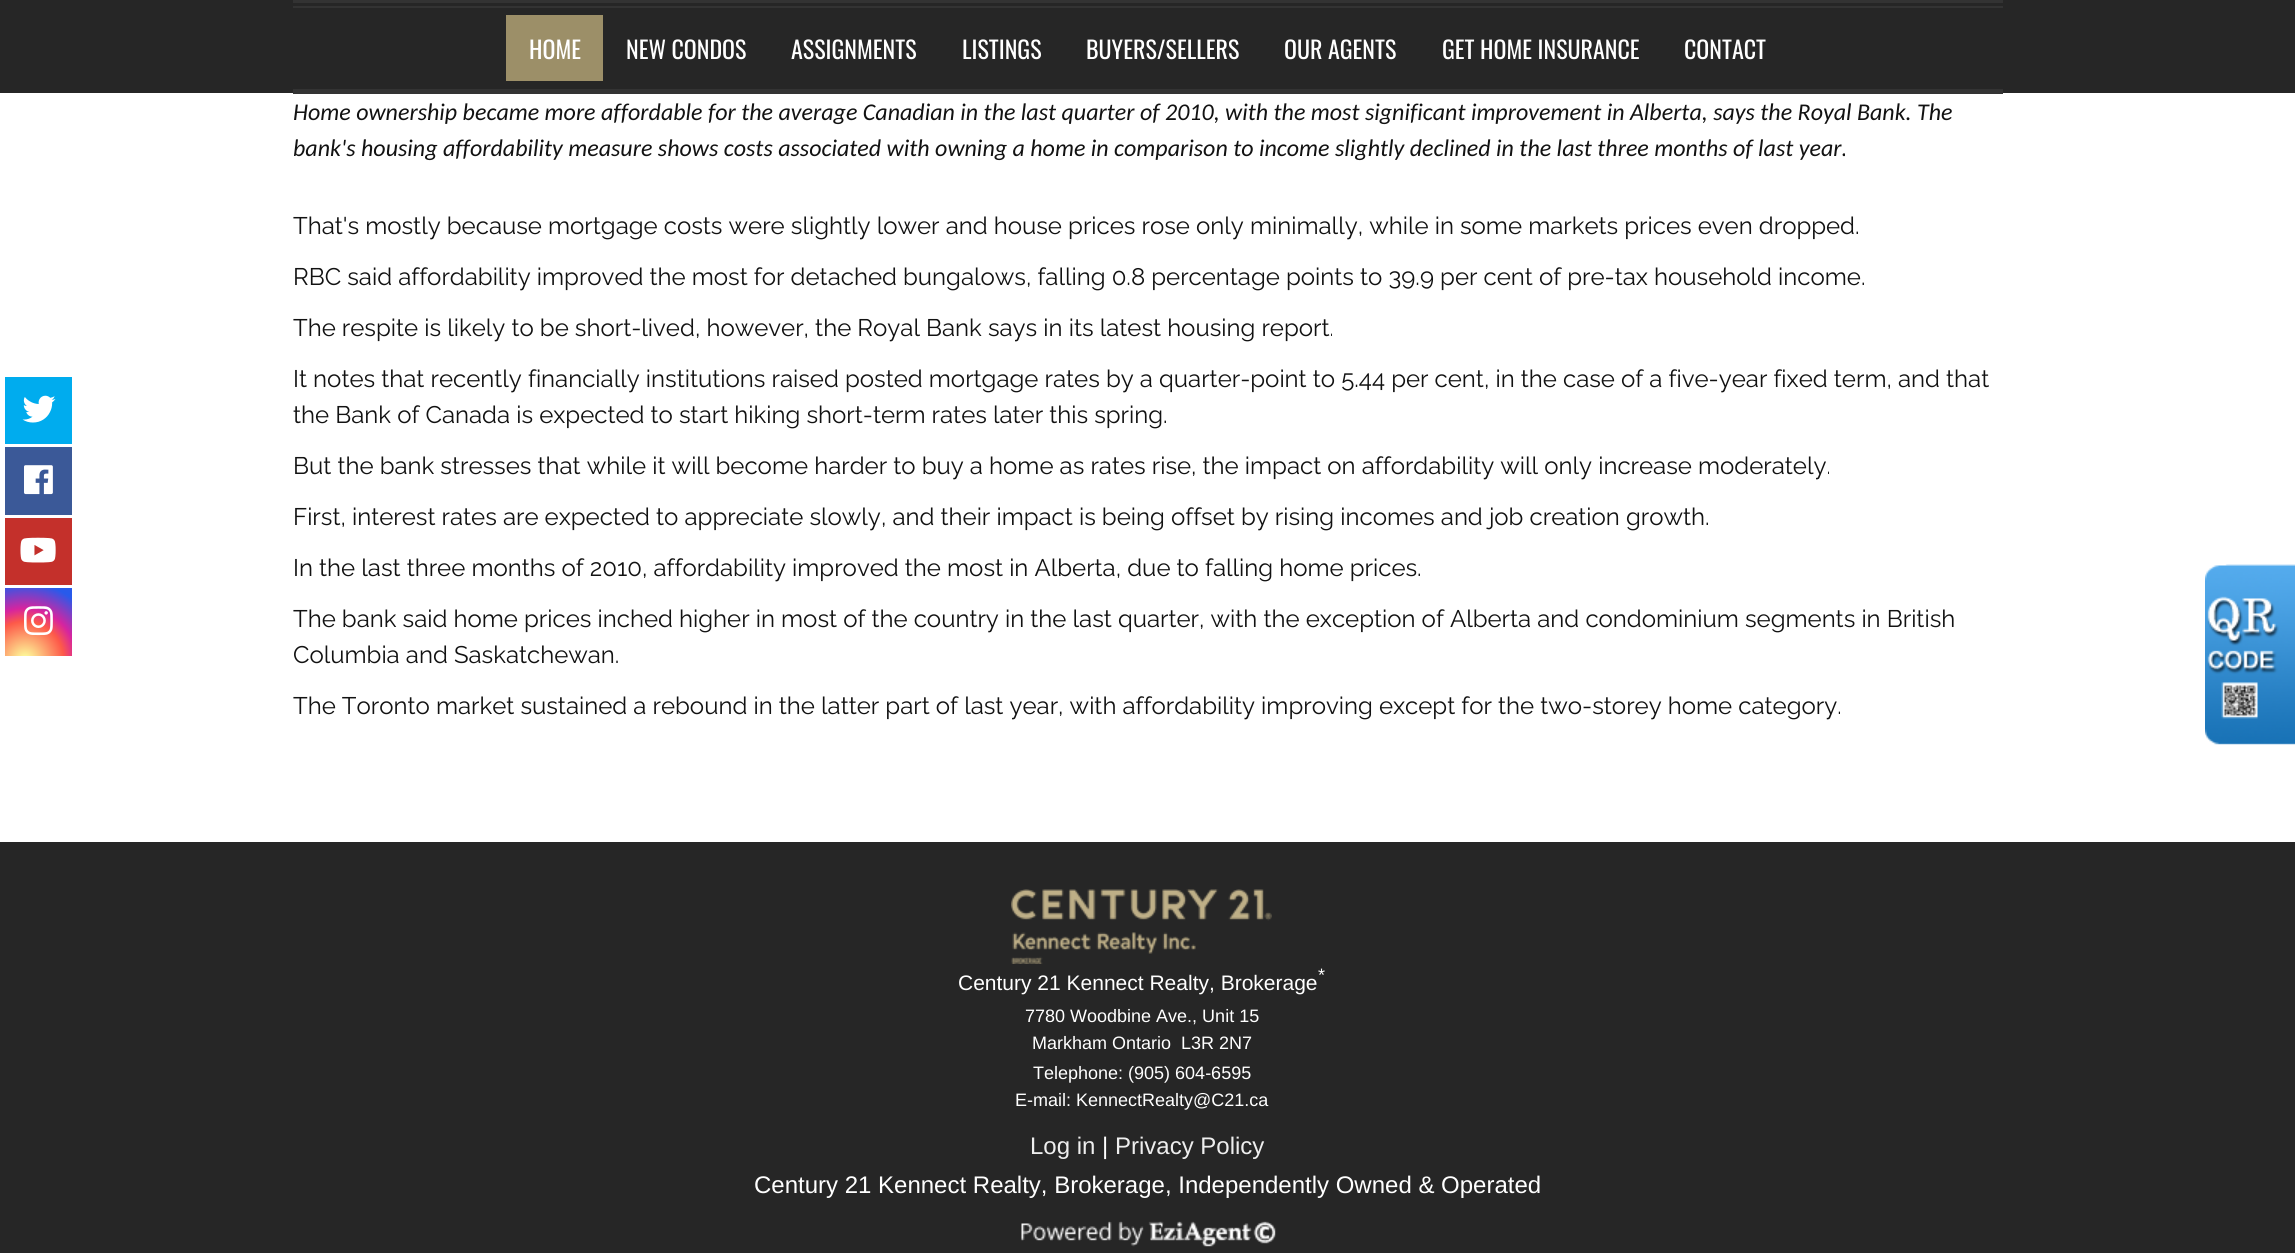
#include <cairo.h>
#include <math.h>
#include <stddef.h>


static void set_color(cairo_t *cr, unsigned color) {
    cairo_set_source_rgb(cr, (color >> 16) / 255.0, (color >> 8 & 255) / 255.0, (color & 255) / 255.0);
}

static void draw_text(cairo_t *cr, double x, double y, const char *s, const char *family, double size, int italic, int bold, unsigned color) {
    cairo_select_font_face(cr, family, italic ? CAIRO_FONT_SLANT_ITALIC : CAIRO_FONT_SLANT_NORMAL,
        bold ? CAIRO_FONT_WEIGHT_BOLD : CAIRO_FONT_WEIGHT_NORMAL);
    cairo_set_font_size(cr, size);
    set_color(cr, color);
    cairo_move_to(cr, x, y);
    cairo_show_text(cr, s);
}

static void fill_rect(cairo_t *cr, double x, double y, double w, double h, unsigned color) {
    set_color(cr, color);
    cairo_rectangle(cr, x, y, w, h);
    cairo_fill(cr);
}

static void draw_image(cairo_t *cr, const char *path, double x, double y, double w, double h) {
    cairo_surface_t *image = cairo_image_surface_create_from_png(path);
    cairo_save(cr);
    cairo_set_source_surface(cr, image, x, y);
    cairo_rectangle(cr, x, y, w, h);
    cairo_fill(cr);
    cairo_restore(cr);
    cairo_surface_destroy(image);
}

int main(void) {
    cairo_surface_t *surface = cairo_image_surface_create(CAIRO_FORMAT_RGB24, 2295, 1253);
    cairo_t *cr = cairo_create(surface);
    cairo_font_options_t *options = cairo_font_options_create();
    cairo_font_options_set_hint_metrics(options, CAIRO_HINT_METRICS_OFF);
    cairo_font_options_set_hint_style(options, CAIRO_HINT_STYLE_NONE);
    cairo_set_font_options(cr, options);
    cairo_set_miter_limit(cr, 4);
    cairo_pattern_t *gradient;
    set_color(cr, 0xFFFFFF);
    cairo_paint(cr);
    fill_rect(cr, 0, 0, 2295, 93, 0x262626);
    fill_rect(cr, 293, 0, 1710, 3, 0x333333);
    fill_rect(cr, 293, 6, 1710, 2, 0x333333);
    fill_rect(cr, 293, 89, 1710, 5, 0x333333);
    fill_rect(cr, 506, 15, 97, 66, 0x9C8F68);
    draw_text(cr, 529, 59, "HOME", "Oswald", 24, 0, 0, 0xFFFFFF);
    draw_text(cr, 626, 59, "NEW CONDOS", "Oswald", 24, 0, 0, 0xFFFFFF);
    draw_text(cr, 791, 59, "ASSIGNMENTS", "Oswald", 24, 0, 0, 0xFFFFFF);
    draw_text(cr, 962, 59, "LISTINGS", "Oswald", 24, 0, 0, 0xFFFFFF);
    draw_text(cr, 1086, 59, "BUYERS/SELLERS", "Oswald", 24, 0, 0, 0xFFFFFF);
    draw_text(cr, 1284, 59, "OUR AGENTS", "Oswald", 24, 0, 0, 0xFFFFFF);
    draw_text(cr, 1442, 59, "GET HOME INSURANCE", "Oswald", 24, 0, 0, 0xFFFFFF);
    draw_text(cr, 1684, 59, "CONTACT", "Oswald", 24, 0, 0, 0xFFFFFF);
    fill_rect(cr, 5, 377, 67, 67, 0x00ACEE);
    draw_image(cr, "assets/img1.png", 22, 395, 34, 28);
    fill_rect(cr, 5, 447, 67, 68, 0x3B5998);
    draw_image(cr, "assets/img2.png", 24, 465, 29, 30);
    fill_rect(cr, 5, 518, 67, 67, 0xC4302B);
    draw_image(cr, "assets/img3.png", 20, 537, 36, 26);
    gradient = cairo_pattern_create_radial(25, 660, 0, 25, 660, 86);
    cairo_pattern_add_color_stop_rgba(gradient, 0, 0.992, 0.957, 0.592, 1);
    cairo_pattern_add_color_stop_rgba(gradient, 0.05, 0.992, 0.957, 0.592, 1);
    cairo_pattern_add_color_stop_rgba(gradient, 0.45, 0.992, 0.349, 0.286, 1);
    cairo_pattern_add_color_stop_rgba(gradient, 0.6, 0.839, 0.141, 0.624, 1);
    cairo_pattern_add_color_stop_rgba(gradient, 0.9, 0.157, 0.353, 0.922, 1);
    cairo_set_source(cr, gradient);
    cairo_pattern_destroy(gradient);
    cairo_rectangle(cr, 5, 588, 67, 68);
    cairo_fill(cr);
    draw_image(cr, "assets/img4.png", 24, 606, 29, 30);
    draw_text(cr, 293, 120, "Home ownership became more affordable for the average Canadian in the last quarter of 2010, with the most significant improvement in Alberta, says the Royal Bank. The", "Carlito", 24, 1, 0, 0x121212);
    draw_text(cr, 293, 156, "bank's housing affordability measure shows costs associated with owning a home in comparison to income slightly declined in the last three months of last year.", "Carlito", 24, 1, 0, 0x121212);
    draw_text(cr, 293, 234, "That's mostly because mortgage costs were slightly lower and house prices rose only minimally, while in some markets prices even dropped.", "Raleway", 24, 0, 0, 0x121212);
    draw_text(cr, 293, 285, "RBC said affordability improved the most for detached bungalows, falling 0.8 percentage points to 39.9 per cent of pre-tax household income.", "Raleway", 24, 0, 0, 0x121212);
    draw_text(cr, 293, 336, "The respite is likely to be short-lived, however, the Royal Bank says in its latest housing report.", "Raleway", 24, 0, 0, 0x121212);
    draw_text(cr, 293, 387, "It notes that recently financially institutions raised posted mortgage rates by a quarter-point to 5.44 per cent, in the case of a five-year fixed term, and that", "Raleway", 24, 0, 0, 0x121212);
    draw_text(cr, 293, 423, "the Bank of Canada is expected to start hiking short-term rates later this spring.", "Raleway", 24, 0, 0, 0x121212);
    draw_text(cr, 293, 474, "But the bank stresses that while it will become harder to buy a home as rates rise, the impact on affordability will only increase moderately.", "Raleway", 24, 0, 0, 0x121212);
    draw_text(cr, 293, 525, "First, interest rates are expected to appreciate slowly, and their impact is being offset by rising incomes and job creation growth.", "Raleway", 24, 0, 0, 0x121212);
    draw_text(cr, 293, 576, "In the last three months of 2010, affordability improved the most in Alberta, due to falling home prices.", "Raleway", 24, 0, 0, 0x121212);
    draw_text(cr, 293, 627, "The bank said home prices inched higher in most of the country in the last quarter, with the exception of Alberta and condominium segments in British", "Raleway", 24, 0, 0, 0x121212);
    draw_text(cr, 293, 663, "Columbia and Saskatchewan.", "Raleway", 24, 0, 0, 0x121212);
    draw_text(cr, 293, 714, "The Toronto market sustained a rebound in the latter part of last year, with affordability improving except for the two-storey home category.", "Raleway", 24, 0, 0, 0x121212);
    draw_image(cr, "assets/img5.png", 2205, 564, 90, 181);
    fill_rect(cr, 0, 842, 2295, 411, 0x262626);
    draw_image(cr, "assets/img6.png", 1011, 889, 261, 75);
    draw_text(cr, 1318, 981, "*", "Liberation Sans", 18, 0, 0, 0xFFFFFF);
    draw_text(cr, 958, 990, "Century 21 Kennect Realty, Brokerage", "Liberation Sans", 21, 0, 0, 0xFFFFFF);
    draw_text(cr, 1025, 1022, "7780 Woodbine Ave., Unit 15", "Liberation Sans", 18, 0, 0, 0xFFFFFF);
    draw_text(cr, 1032, 1049, "Markham Ontario  L3R 2N7", "Liberation Sans", 18, 0, 0, 0xFFFFFF);
    draw_text(cr, 1033, 1079, "Telephone: (905) 604-6595", "Liberation Sans", 18, 0, 0, 0xFFFFFF);
    draw_text(cr, 1015, 1106, "E-mail: KennectRealty@C21.ca", "Liberation Sans", 18, 0, 0, 0xFFFFFF);
    draw_text(cr, 1030, 1154, "Log in", "Liberation Sans", 24, 0, 0, 0xEEEEEE);
    draw_text(cr, 1102, 1154, "|", "Liberation Sans", 24, 0, 0, 0xFFFFFF);
    draw_text(cr, 1115, 1154, "Privacy Policy", "Liberation Sans", 24, 0, 0, 0xEEEEEE);
    draw_text(cr, 754, 1193, "Century 21 Kennect Realty, Brokerage, Independently Owned & Operated", "Liberation Sans", 24, 0, 0, 0xFFFFFF);
    draw_image(cr, "assets/img7.png", 1021, 1221, 255, 26);
    cairo_surface_write_to_png(surface, "output.png");
    cairo_font_options_destroy(options);
    cairo_destroy(cr);
    cairo_surface_destroy(surface);
    return 0;
}
